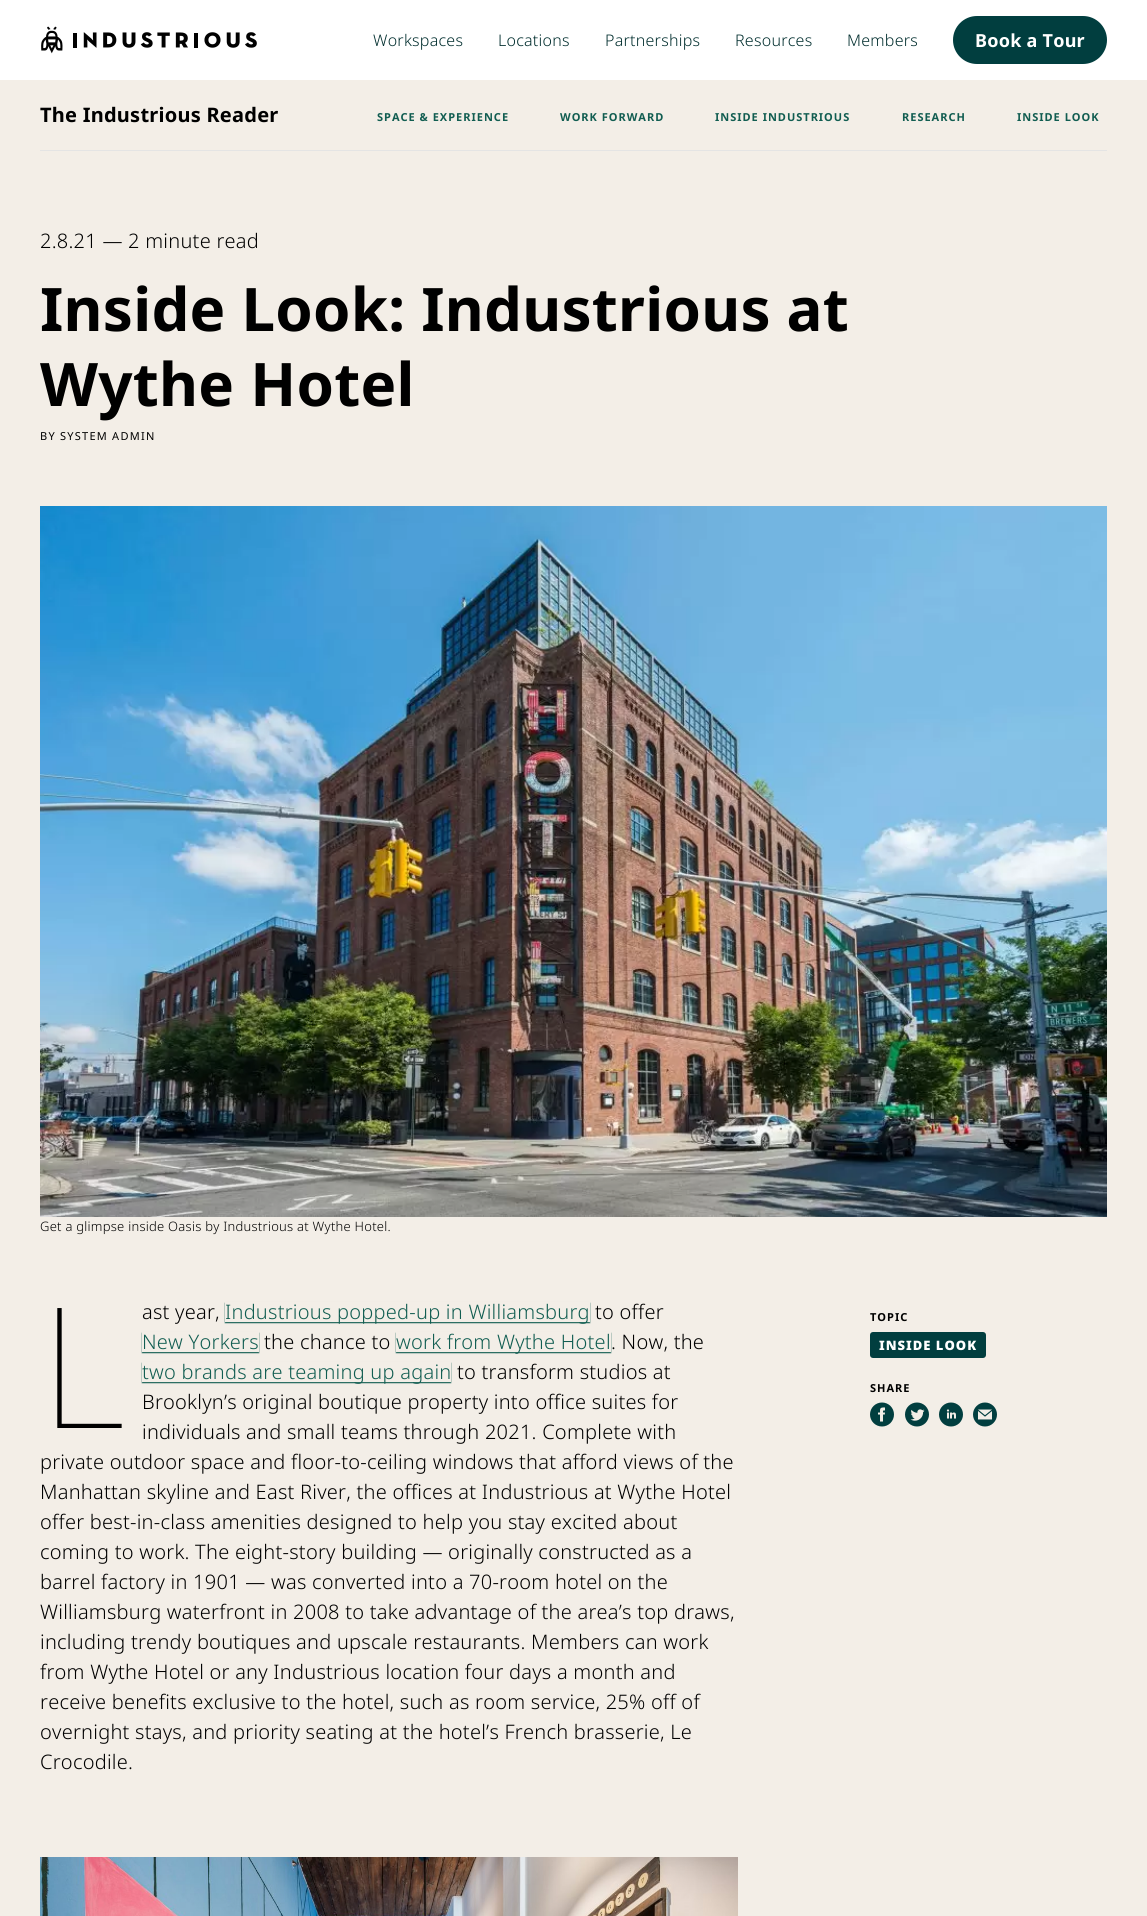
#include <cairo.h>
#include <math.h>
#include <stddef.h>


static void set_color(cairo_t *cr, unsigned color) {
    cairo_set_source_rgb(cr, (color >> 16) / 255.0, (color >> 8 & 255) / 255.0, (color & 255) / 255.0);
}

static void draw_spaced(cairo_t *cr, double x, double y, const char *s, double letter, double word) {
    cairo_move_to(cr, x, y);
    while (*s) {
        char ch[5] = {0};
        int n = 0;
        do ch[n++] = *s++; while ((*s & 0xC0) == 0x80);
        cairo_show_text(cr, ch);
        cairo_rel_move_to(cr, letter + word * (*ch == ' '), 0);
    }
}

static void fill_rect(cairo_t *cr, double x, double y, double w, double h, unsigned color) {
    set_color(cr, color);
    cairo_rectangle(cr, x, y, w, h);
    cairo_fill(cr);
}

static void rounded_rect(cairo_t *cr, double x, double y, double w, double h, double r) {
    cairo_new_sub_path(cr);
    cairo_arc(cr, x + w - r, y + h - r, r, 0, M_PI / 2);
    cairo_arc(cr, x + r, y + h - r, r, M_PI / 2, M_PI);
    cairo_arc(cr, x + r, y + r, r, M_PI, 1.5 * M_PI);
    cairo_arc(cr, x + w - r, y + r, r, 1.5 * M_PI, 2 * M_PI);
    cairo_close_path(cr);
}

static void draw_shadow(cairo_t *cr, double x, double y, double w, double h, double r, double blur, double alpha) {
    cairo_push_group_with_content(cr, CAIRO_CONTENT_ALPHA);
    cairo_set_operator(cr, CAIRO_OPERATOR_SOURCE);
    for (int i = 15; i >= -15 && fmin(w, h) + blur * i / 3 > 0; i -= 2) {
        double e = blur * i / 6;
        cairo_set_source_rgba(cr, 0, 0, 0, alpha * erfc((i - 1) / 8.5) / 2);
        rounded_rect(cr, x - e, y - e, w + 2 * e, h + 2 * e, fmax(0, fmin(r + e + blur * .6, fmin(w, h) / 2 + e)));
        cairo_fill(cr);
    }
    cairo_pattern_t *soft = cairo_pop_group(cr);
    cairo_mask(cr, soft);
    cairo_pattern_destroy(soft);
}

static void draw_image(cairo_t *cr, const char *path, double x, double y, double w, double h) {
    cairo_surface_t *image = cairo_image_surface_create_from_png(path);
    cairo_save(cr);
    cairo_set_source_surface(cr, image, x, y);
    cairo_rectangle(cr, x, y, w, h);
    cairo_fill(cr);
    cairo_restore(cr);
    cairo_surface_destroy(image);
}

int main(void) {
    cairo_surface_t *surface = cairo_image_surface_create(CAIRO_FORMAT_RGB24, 1147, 1916);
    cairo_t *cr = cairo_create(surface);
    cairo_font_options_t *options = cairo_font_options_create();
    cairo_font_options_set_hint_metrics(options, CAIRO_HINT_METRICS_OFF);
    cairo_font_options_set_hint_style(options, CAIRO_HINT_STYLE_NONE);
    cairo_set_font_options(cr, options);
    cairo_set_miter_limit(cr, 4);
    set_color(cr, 0xF3EEE7);
    cairo_paint(cr);
    fill_rect(cr, 0, 0, 1147, 80, 0xFFFFFF);
    draw_image(cr, "assets/img1.png", 41, 26, 216, 28);
    cairo_select_font_face(cr, "Noto Sans Light", CAIRO_FONT_SLANT_NORMAL, CAIRO_FONT_WEIGHT_NORMAL);
    cairo_set_font_size(cr, 16);
    set_color(cr, 0x002D2D);
    draw_spaced(cr, 373, 46, "Workspaces", 0.25, 0);
    draw_spaced(cr, 498, 46, "Locations", 0.25, 0);
    draw_spaced(cr, 605, 46, "Partnerships", 0.25, 0);
    draw_spaced(cr, 735, 46, "Resources", 0.25, 0);
    draw_spaced(cr, 847, 46, "Members", 0.25, 0);
    set_color(cr, 0x013E3F);
    rounded_rect(cr, 954, 17, 152, 46, 23);
    cairo_fill_preserve(cr);
    cairo_stroke(cr);
    cairo_select_font_face(cr, "Noto Sans", CAIRO_FONT_SLANT_NORMAL, CAIRO_FONT_WEIGHT_BOLD);
    cairo_set_font_size(cr, 18);
    set_color(cr, 0xFFFFFF);
    draw_spaced(cr, 975, 47, "Book a Tour", 0.25, 0);
    fill_rect(cr, 40, 150, 1067, 1, 0xE4E4E4);
    cairo_set_font_size(cr, 20);
    set_color(cr, 0x000000);
    draw_spaced(cr, 40, 122, "The Industrious Reader", 0.25, 0);
    cairo_set_font_size(cr, 11);
    set_color(cr, 0x115D51);
    draw_spaced(cr, 377, 121, "SPACE & EXPERIENCE", 1, 0);
    draw_spaced(cr, 560, 121, "WORK FORWARD", 1, 0);
    draw_spaced(cr, 715, 121, "INSIDE INDUSTRIOUS", 1, 0);
    draw_spaced(cr, 902, 121, "RESEARCH", 1, 0);
    draw_spaced(cr, 1017, 121, "INSIDE LOOK", 1, 0);
    cairo_select_font_face(cr, "Noto Sans Light", CAIRO_FONT_SLANT_NORMAL, CAIRO_FONT_WEIGHT_NORMAL);
    cairo_set_font_size(cr, 20);
    set_color(cr, 0x000000);
    draw_spaced(cr, 40, 248, "2.8.21 — 2 minute read", 0.25, 0);
    cairo_select_font_face(cr, "Noto Sans", CAIRO_FONT_SLANT_NORMAL, CAIRO_FONT_WEIGHT_BOLD);
    cairo_set_font_size(cr, 60);
    draw_spaced(cr, 40, 331, "Inside Look: Industrious at", 0.25, 0);
    draw_spaced(cr, 40, 406, "Wythe Hotel", 0.25, 0);
    cairo_select_font_face(cr, "Noto Sans", CAIRO_FONT_SLANT_NORMAL, CAIRO_FONT_WEIGHT_NORMAL);
    cairo_set_font_size(cr, 11);
    draw_spaced(cr, 40, 440, "BY SYSTEM ADMIN", 1.25, 0);
    draw_image(cr, "assets/img2.png", 40, 506, 1067, 711);
    cairo_select_font_face(cr, "Noto Sans Light", CAIRO_FONT_SLANT_NORMAL, CAIRO_FONT_WEIGHT_NORMAL);
    cairo_set_font_size(cr, 13);
    draw_spaced(cr, 40, 1231, "Get a glimpse inside Oasis by Industrious at Wythe Hotel.", 0.25, 0);
    cairo_select_font_face(cr, "Noto Sans Thin", CAIRO_FONT_SLANT_NORMAL, CAIRO_FONT_WEIGHT_NORMAL);
    cairo_set_font_size(cr, 168);
    draw_spaced(cr, 40, 1428, "L", 0.25, 0);
    cairo_select_font_face(cr, "Noto Sans Light", CAIRO_FONT_SLANT_NORMAL, CAIRO_FONT_WEIGHT_NORMAL);
    cairo_set_font_size(cr, 20);
    draw_spaced(cr, 142, 1319, "ast year,", 0.25, 0);
    cairo_save(cr);
    cairo_set_fill_rule(cr, CAIRO_FILL_RULE_EVEN_ODD);
    cairo_new_path(cr);
    cairo_move_to(cr, 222, 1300);
    cairo_line_to(cr, 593, 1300);
    cairo_line_to(cr, 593, 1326);
    cairo_line_to(cr, 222, 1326);
    cairo_close_path(cr);
    cairo_move_to(cr, 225, 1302);
    cairo_line_to(cr, 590, 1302);
    cairo_line_to(cr, 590, 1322);
    cairo_line_to(cr, 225, 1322);
    cairo_close_path(cr);
    cairo_clip(cr);
    set_color(cr, 0x115D51);
    draw_shadow(cr, 225, 1303, 365, 20, 0, 0.5, 1);
    cairo_restore(cr);
    set_color(cr, 0x115D51);
    draw_spaced(cr, 225, 1319, "Industrious popped-up in Williamsburg", 0.25, 0);
    set_color(cr, 0x000000);
    draw_spaced(cr, 595, 1319, "to offer", 0.25, 0);
    cairo_save(cr);
    cairo_set_fill_rule(cr, CAIRO_FILL_RULE_EVEN_ODD);
    cairo_new_path(cr);
    cairo_move_to(cr, 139, 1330);
    cairo_line_to(cr, 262, 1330);
    cairo_line_to(cr, 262, 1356);
    cairo_line_to(cr, 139, 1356);
    cairo_close_path(cr);
    cairo_move_to(cr, 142, 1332);
    cairo_line_to(cr, 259, 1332);
    cairo_line_to(cr, 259, 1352);
    cairo_line_to(cr, 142, 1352);
    cairo_close_path(cr);
    cairo_clip(cr);
    set_color(cr, 0x115D51);
    draw_shadow(cr, 142, 1333, 117, 20, 0, 0.5, 1);
    cairo_restore(cr);
    set_color(cr, 0x115D51);
    draw_spaced(cr, 142, 1349, "New Yorkers", 0.25, 0);
    set_color(cr, 0x000000);
    draw_spaced(cr, 264, 1349, "the chance to", 0.25, 0);
    cairo_save(cr);
    cairo_set_fill_rule(cr, CAIRO_FILL_RULE_EVEN_ODD);
    cairo_new_path(cr);
    cairo_move_to(cr, 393, 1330);
    cairo_line_to(cr, 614, 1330);
    cairo_line_to(cr, 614, 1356);
    cairo_line_to(cr, 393, 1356);
    cairo_close_path(cr);
    cairo_move_to(cr, 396, 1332);
    cairo_line_to(cr, 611, 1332);
    cairo_line_to(cr, 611, 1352);
    cairo_line_to(cr, 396, 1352);
    cairo_close_path(cr);
    cairo_clip(cr);
    set_color(cr, 0x115D51);
    draw_shadow(cr, 396, 1333, 215, 20, 0, 0.5, 1);
    cairo_restore(cr);
    set_color(cr, 0x115D51);
    draw_spaced(cr, 396, 1349, "work from Wythe Hotel", 0.25, 0);
    set_color(cr, 0x000000);
    draw_spaced(cr, 611, 1349, ". Now, the", 0.25, 0);
    cairo_save(cr);
    cairo_set_fill_rule(cr, CAIRO_FILL_RULE_EVEN_ODD);
    cairo_new_path(cr);
    cairo_move_to(cr, 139, 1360);
    cairo_line_to(cr, 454, 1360);
    cairo_line_to(cr, 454, 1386);
    cairo_line_to(cr, 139, 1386);
    cairo_close_path(cr);
    cairo_move_to(cr, 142, 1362);
    cairo_line_to(cr, 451, 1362);
    cairo_line_to(cr, 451, 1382);
    cairo_line_to(cr, 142, 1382);
    cairo_close_path(cr);
    cairo_clip(cr);
    set_color(cr, 0x115D51);
    draw_shadow(cr, 142, 1363, 309, 20, 0, 0.5, 1);
    cairo_restore(cr);
    set_color(cr, 0x115D51);
    draw_spaced(cr, 142, 1379, "two brands are teaming up again", 0.25, 0);
    set_color(cr, 0x000000);
    draw_spaced(cr, 457, 1379, "to transform studios at", 0.25, 0);
    draw_spaced(cr, 142, 1409, "Brooklyn’s original boutique property into office suites for", 0.25, 0);
    draw_spaced(cr, 142, 1439, "individuals and small teams through 2021. Complete with", 0.25, 0);
    draw_spaced(cr, 40, 1469, "private outdoor space and floor-to-ceiling windows that afford views of the", 0.25, 0);
    draw_spaced(cr, 40, 1499, "Manhattan skyline and East River, the offices at Industrious at Wythe Hotel", 0.25, 0);
    draw_spaced(cr, 40, 1529, "offer best-in-class amenities designed to help you stay excited about", 0.25, 0);
    draw_spaced(cr, 40, 1559, "coming to work. The eight-story building — originally constructed as a", 0.25, 0);
    draw_spaced(cr, 40, 1589, "barrel factory in 1901 — was converted into a 70-room hotel on the", 0.25, 0);
    draw_spaced(cr, 40, 1619, "Williamsburg waterfront in 2008 to take advantage of the area’s top draws,", 0.25, 0);
    draw_spaced(cr, 40, 1649, "including trendy boutiques and upscale restaurants. Members can work", 0.25, 0);
    draw_spaced(cr, 40, 1679, "from Wythe Hotel or any Industrious location four days a month and", 0.25, 0);
    draw_spaced(cr, 40, 1709, "receive benefits exclusive to the hotel, such as room service, 25% off of", 0.25, 0);
    draw_spaced(cr, 40, 1739, "overnight stays, and priority seating at the hotel’s French brasserie, Le", 0.25, 0);
    draw_spaced(cr, 40, 1769, "Crocodile.", 0.25, 0);
    draw_image(cr, "assets/img3.png", 40, 1857, 698, 59);
    cairo_select_font_face(cr, "Noto Sans", CAIRO_FONT_SLANT_NORMAL, CAIRO_FONT_WEIGHT_BOLD);
    cairo_set_font_size(cr, 11);
    draw_spaced(cr, 870, 1321, "TOPIC", 1, 0);
    set_color(cr, 0x013E3F);
    rounded_rect(cr, 871, 1333, 114, 24, 2);
    cairo_fill_preserve(cr);
    cairo_stroke(cr);
    cairo_select_font_face(cr, "Noto Sans Black", CAIRO_FONT_SLANT_NORMAL, CAIRO_FONT_WEIGHT_NORMAL);
    cairo_set_font_size(cr, 13);
    set_color(cr, 0xFFFFFF);
    draw_spaced(cr, 879, 1350, "INSIDE LOOK", 1, 0);
    cairo_select_font_face(cr, "Noto Sans", CAIRO_FONT_SLANT_NORMAL, CAIRO_FONT_WEIGHT_BOLD);
    cairo_set_font_size(cr, 11);
    set_color(cr, 0x000000);
    draw_spaced(cr, 870, 1392, "SHARE", 1, 0);
    draw_image(cr, "assets/img4.png", 870, 1402, 24, 25);
    draw_image(cr, "assets/img5.png", 905, 1402, 24, 25);
    draw_image(cr, "assets/img6.png", 939, 1402, 24, 25);
    draw_image(cr, "assets/img7.png", 973, 1402, 24, 25);
    cairo_surface_write_to_png(surface, "output.png");
    cairo_font_options_destroy(options);
    cairo_destroy(cr);
    cairo_surface_destroy(surface);
    return 0;
}
